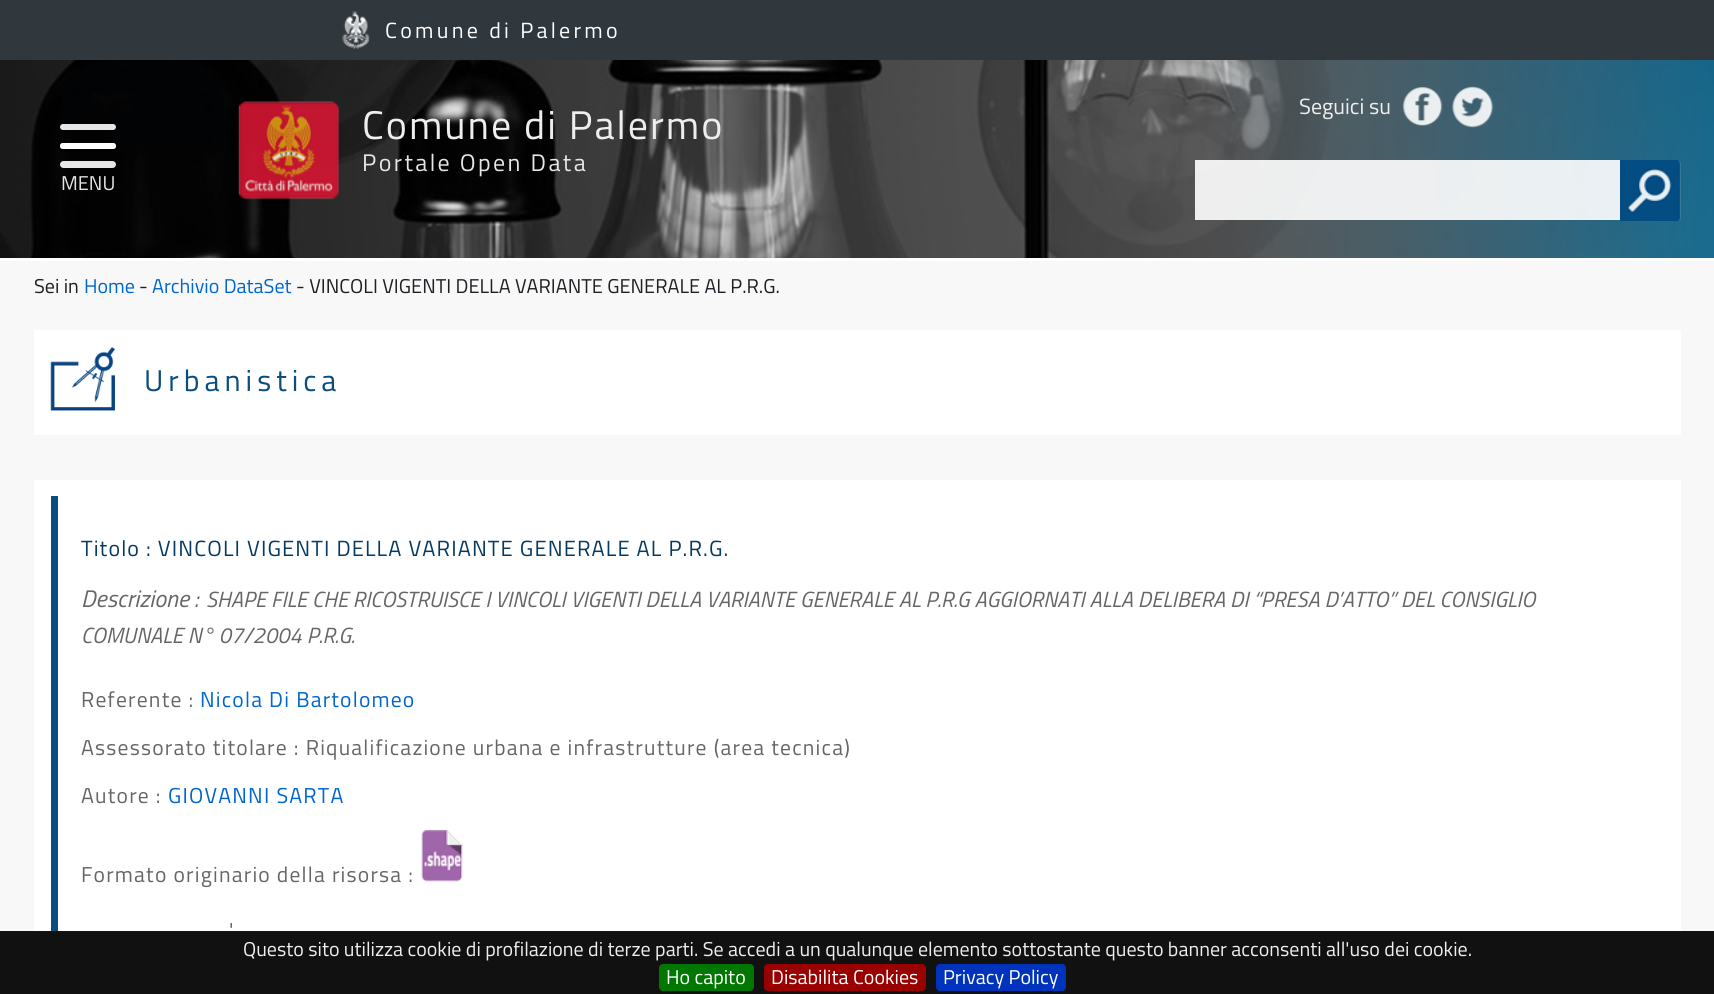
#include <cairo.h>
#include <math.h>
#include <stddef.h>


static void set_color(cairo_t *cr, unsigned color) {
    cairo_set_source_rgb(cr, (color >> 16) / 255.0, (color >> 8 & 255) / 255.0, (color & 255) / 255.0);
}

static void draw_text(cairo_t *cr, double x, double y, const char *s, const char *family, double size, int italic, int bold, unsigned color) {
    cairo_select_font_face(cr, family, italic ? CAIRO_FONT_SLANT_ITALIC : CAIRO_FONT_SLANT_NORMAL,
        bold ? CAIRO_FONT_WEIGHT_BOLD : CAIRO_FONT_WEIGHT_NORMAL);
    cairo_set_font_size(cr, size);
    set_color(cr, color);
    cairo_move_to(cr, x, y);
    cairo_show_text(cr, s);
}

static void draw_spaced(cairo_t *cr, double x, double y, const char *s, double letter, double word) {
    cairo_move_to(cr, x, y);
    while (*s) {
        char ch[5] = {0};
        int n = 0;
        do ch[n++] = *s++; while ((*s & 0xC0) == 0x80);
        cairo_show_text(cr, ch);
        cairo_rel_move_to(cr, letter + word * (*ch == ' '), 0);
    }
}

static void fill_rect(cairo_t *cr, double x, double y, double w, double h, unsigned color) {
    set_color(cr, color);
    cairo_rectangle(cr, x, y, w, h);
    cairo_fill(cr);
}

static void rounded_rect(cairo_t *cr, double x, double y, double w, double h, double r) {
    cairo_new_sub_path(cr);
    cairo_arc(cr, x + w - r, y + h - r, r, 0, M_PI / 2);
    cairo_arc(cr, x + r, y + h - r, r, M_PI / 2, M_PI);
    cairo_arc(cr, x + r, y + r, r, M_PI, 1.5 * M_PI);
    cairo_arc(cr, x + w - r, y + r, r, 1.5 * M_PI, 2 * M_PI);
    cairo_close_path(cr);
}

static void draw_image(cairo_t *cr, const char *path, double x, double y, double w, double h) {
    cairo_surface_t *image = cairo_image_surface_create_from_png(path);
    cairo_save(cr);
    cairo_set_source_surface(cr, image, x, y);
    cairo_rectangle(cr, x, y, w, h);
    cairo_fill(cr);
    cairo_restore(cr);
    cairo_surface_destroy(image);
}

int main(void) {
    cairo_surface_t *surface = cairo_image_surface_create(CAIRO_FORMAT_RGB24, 1714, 994);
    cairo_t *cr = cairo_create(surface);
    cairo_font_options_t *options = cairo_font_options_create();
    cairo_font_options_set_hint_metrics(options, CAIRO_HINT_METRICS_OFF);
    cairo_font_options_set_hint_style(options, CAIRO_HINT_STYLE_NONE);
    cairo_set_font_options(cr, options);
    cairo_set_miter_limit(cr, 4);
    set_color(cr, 0xF8F8F8);
    cairo_paint(cr);
    draw_image(cr, "assets/img1.png", 0, 60, 1714, 198);
    fill_rect(cr, 0, 258, 1714, 3, 0xFFFFFF);
    fill_rect(cr, 0, 0, 1714, 60, 0x30373D);
    draw_image(cr, "assets/img2.png", 342, 11, 28, 38);
    cairo_select_font_face(cr, "Titillium Web", CAIRO_FONT_SLANT_NORMAL, CAIRO_FONT_WEIGHT_NORMAL);
    cairo_set_font_size(cr, 22);
    set_color(cr, 0xFFFFFF);
    draw_spaced(cr, 385, 38, "Comune di Palermo", 3.25, 0);
    draw_image(cr, "assets/img3.png", 238, 101, 101, 99);
    cairo_set_font_size(cr, 40);
    set_color(cr, 0xEEEEEE);
    draw_spaced(cr, 362, 139, "Comune di Palermo", 2, 0);
    cairo_set_font_size(cr, 24);
    set_color(cr, 0xE6E6E6);
    draw_spaced(cr, 362, 171, "Portale Open Data", 2.4, 0);
    draw_text(cr, 1299, 114, "Seguici su", "Titillium Web", 22, 0, 0, 0xEEEEEE);
    draw_image(cr, "assets/img4.png", 1402, 87, 41, 39);
    draw_image(cr, "assets/img5.png", 1452, 86, 42, 42);
    cairo_set_source_rgba(cr, 1, 1, 1, 0.9);
    rounded_rect(cr, 60, 124, 56, 6, 3);
    cairo_fill(cr);
    rounded_rect(cr, 60, 143, 56, 6, 3);
    cairo_fill(cr);
    rounded_rect(cr, 60, 143, 56, 6, 3);
    cairo_fill(cr);
    rounded_rect(cr, 60, 161, 56, 7, 3.5);
    cairo_fill(cr);
    draw_text(cr, 61, 190, "MENU", "Titillium Web", 20, 0, 0, 0xE6E6E6);
    cairo_set_source_rgba(cr, 1, 1, 1, 0.9);
    cairo_rectangle(cr, 1195, 160, 425, 60);
    cairo_fill(cr);
    draw_image(cr, "assets/img6.png", 1620, 160, 61, 61);
    draw_text(cr, 34, 293, "Sei in", "Titillium Web", 20, 0, 0, 0x1C2024);
    draw_text(cr, 84, 293, "Home", "Titillium Web", 20, 0, 0, 0x0066CC);
    draw_text(cr, 139, 293, "-", "Titillium Web", 20, 0, 0, 0x1C2024);
    draw_text(cr, 152, 293, "Archivio DataSet", "Titillium Web", 20, 0, 0, 0x0066CC);
    draw_text(cr, 296, 293, "- VINCOLI VIGENTI DELLA VARIANTE GENERALE AL P.R.G.", "Titillium Web", 20, 0, 0, 0x1C2024);
    fill_rect(cr, 34, 330, 1647, 105, 0xFFFFFF);
    draw_image(cr, "assets/img7.png", 50, 347, 66, 64);
    cairo_set_font_size(cr, 30);
    set_color(cr, 0x0A4D7F);
    draw_spaced(cr, 144, 391, "Urbanistica", 5, 0);
    fill_rect(cr, 34, 480, 1647, 451, 0xFFFFFF);
    fill_rect(cr, 51, 496, 7, 435, 0x0A4D7F);
    cairo_set_font_size(cr, 22);
    set_color(cr, 0x063A63);
    draw_spaced(cr, 81, 556, "Titolo : VINCOLI VIGENTI DELLA VARIANTE GENERALE AL P.R.G.", 1.1, 0);
    draw_text(cr, 81, 607, "Descrizione :", "Titillium Web", 24, 1, 0, 0x666666);
    draw_text(cr, 206, 607, "SHAPE FILE CHE RICOSTRUISCE I VINCOLI VIGENTI DELLA VARIANTE GENERALE AL P.R.G AGGIORNATI ALLA DELIBERA DI “PRESA D’ATTO” DEL CONSIGLIO", "Titillium Web", 22, 1, 0, 0x666666);
    draw_text(cr, 81, 643, "COMUNALE N° 07/2004 P.R.G.", "Titillium Web", 22, 1, 0, 0x666666);
    cairo_select_font_face(cr, "Titillium Web", CAIRO_FONT_SLANT_NORMAL, CAIRO_FONT_WEIGHT_NORMAL);
    cairo_set_font_size(cr, 21.6);
    draw_spaced(cr, 81, 707, "Referente :", 1.2, 0);
    set_color(cr, 0x0066CC);
    draw_spaced(cr, 200, 707, "Nicola Di Bartolomeo", 1.2, 0);
    set_color(cr, 0x666666);
    draw_spaced(cr, 81, 755, "Assessorato titolare : Riqualificazione urbana e infrastrutture (area tecnica)", 1.2, 0);
    draw_spaced(cr, 81, 803, "Autore :", 1.2, 0);
    set_color(cr, 0x0066CC);
    draw_spaced(cr, 168, 803, "GIOVANNI SARTA", 1.2, 0);
    set_color(cr, 0x666666);
    draw_spaced(cr, 81, 882, "Formato originario della risorsa :", 1.2, 0);
    draw_image(cr, "assets/img8.png", 421, 829, 42, 53);
    draw_spaced(cr, 229, 938, "'", 1.2, 0);
    fill_rect(cr, 0, 931, 1714, 63, 0x111111);
    draw_text(cr, 243, 956, "Questo sito utilizza cookie di profilazione di terze parti. Se accedi a un qualunque elemento sottostante questo banner acconsenti all'uso dei cookie.", "Titillium Web", 20, 0, 0, 0xEEEEEE);
    set_color(cr, 0x007700);
    rounded_rect(cr, 659, 964, 95, 27, 4);
    cairo_fill(cr);
    draw_text(cr, 666, 984, "Ho capito", "Titillium Web", 20, 0, 0, 0xFFFFFF);
    set_color(cr, 0x990000);
    rounded_rect(cr, 764, 964, 162, 27, 4);
    cairo_fill(cr);
    draw_text(cr, 771, 984, "Disabilita Cookies", "Titillium Web", 20, 0, 0, 0xFFFFFF);
    set_color(cr, 0x0033BB);
    rounded_rect(cr, 936, 964, 130, 27, 4);
    cairo_fill(cr);
    draw_text(cr, 943, 984, "Privacy Policy", "Titillium Web", 20, 0, 0, 0xFFFFFF);
    cairo_surface_write_to_png(surface, "output.png");
    cairo_font_options_destroy(options);
    cairo_destroy(cr);
    cairo_surface_destroy(surface);
    return 0;
}
